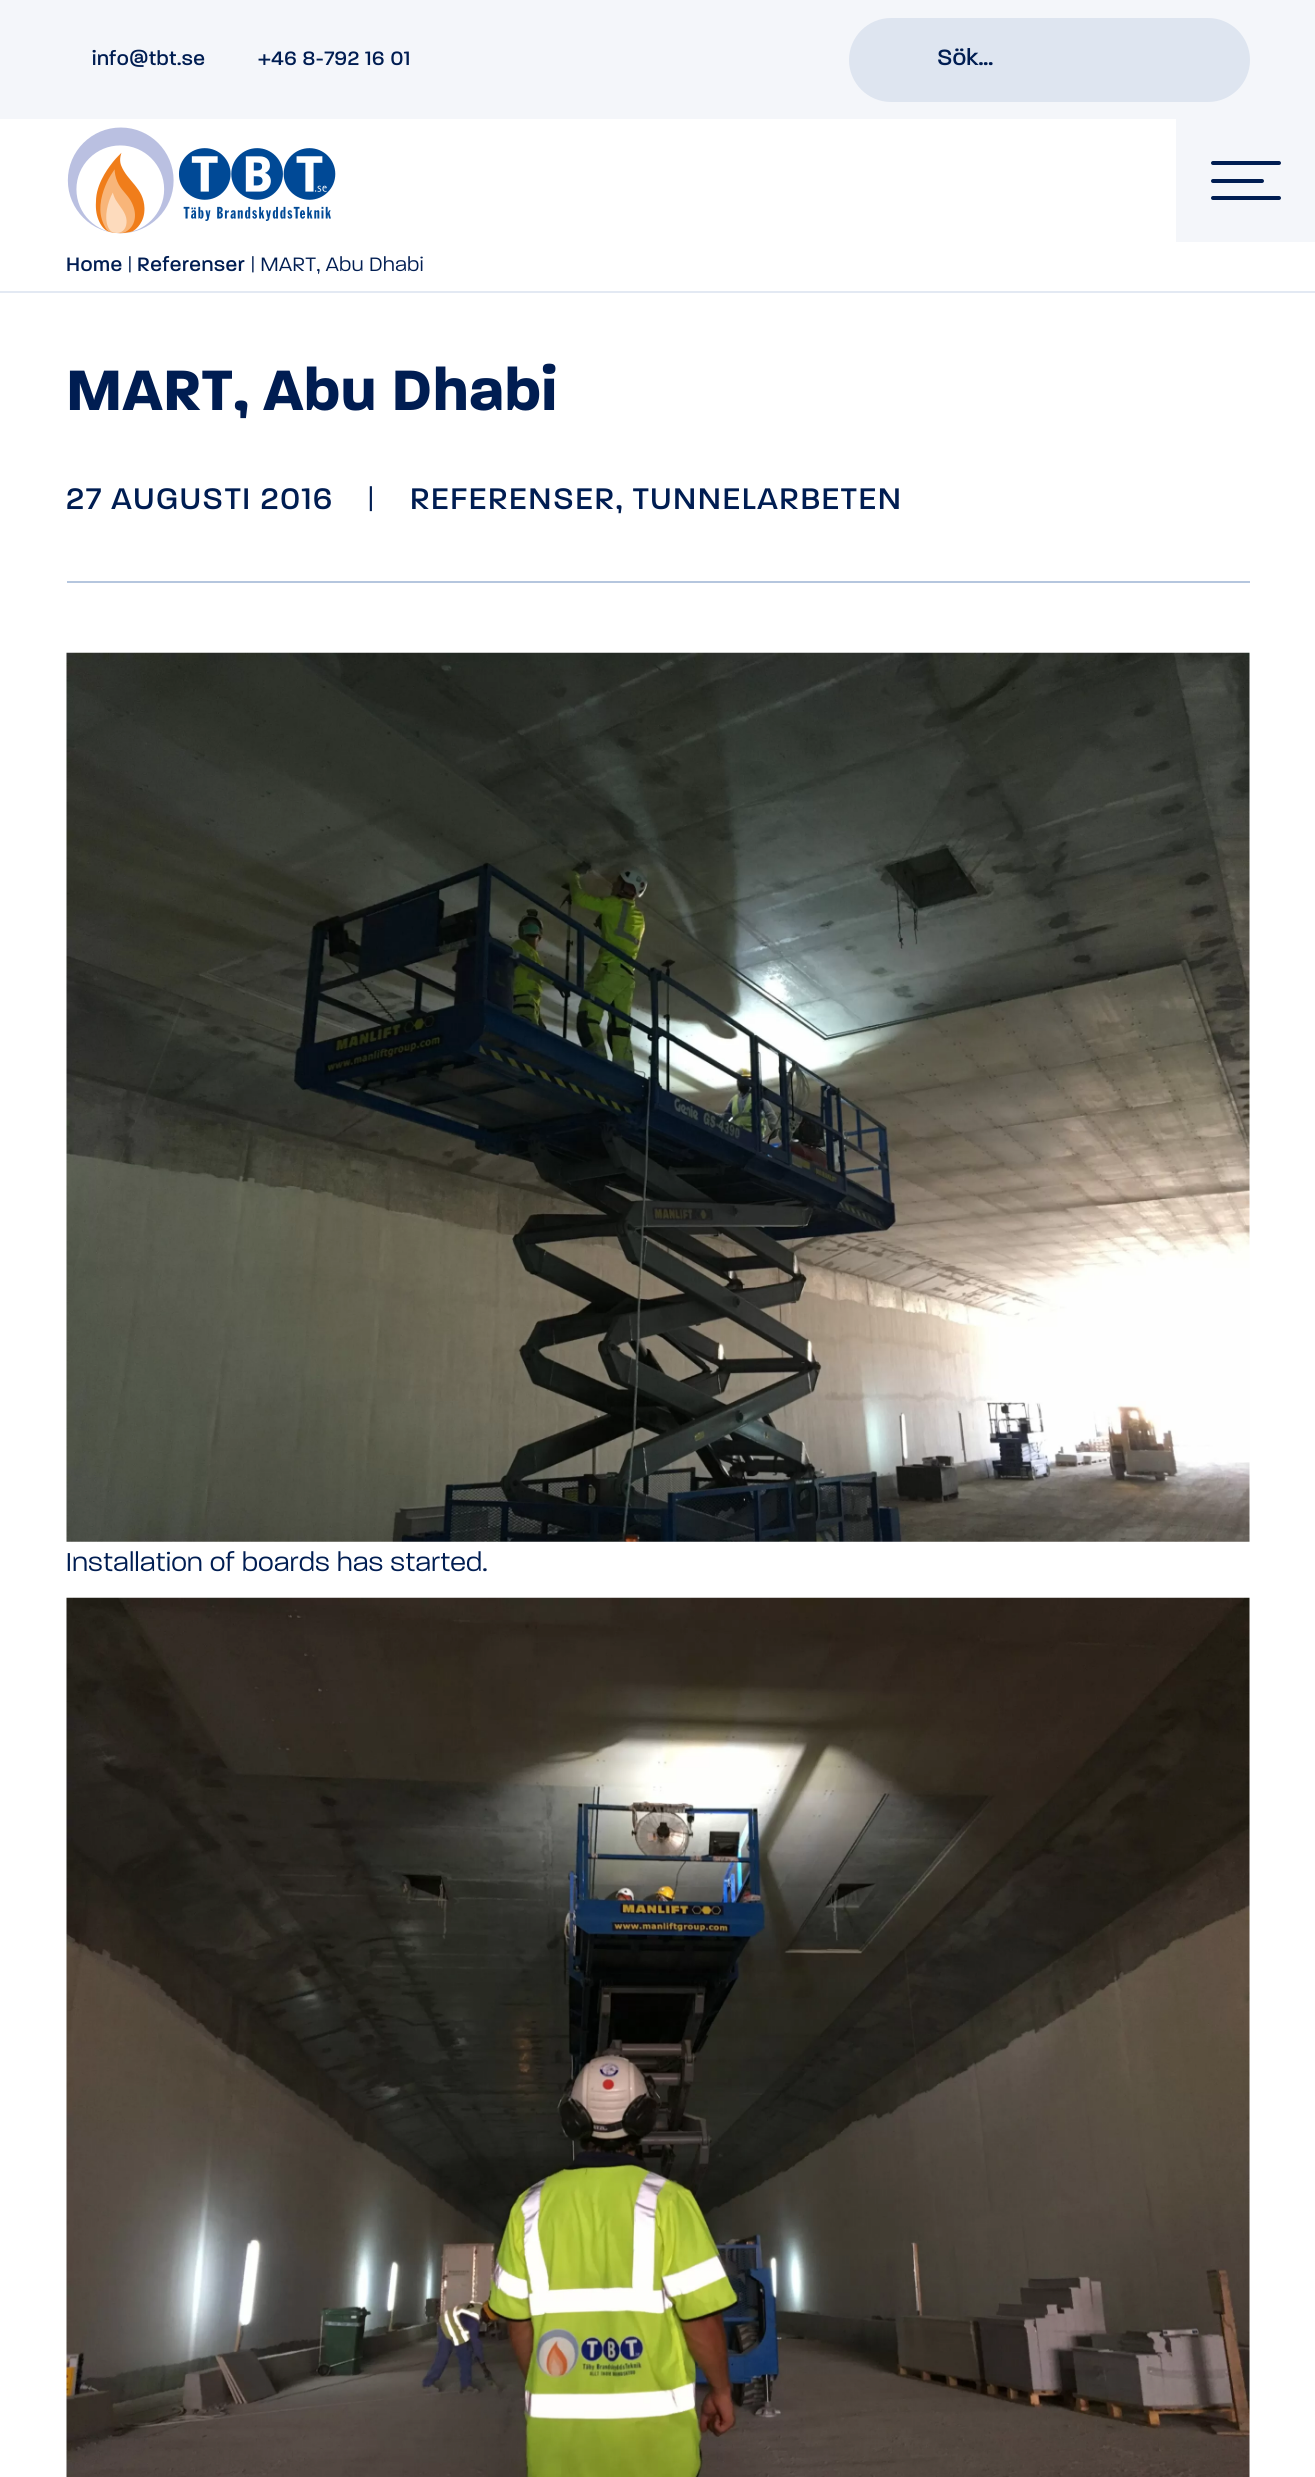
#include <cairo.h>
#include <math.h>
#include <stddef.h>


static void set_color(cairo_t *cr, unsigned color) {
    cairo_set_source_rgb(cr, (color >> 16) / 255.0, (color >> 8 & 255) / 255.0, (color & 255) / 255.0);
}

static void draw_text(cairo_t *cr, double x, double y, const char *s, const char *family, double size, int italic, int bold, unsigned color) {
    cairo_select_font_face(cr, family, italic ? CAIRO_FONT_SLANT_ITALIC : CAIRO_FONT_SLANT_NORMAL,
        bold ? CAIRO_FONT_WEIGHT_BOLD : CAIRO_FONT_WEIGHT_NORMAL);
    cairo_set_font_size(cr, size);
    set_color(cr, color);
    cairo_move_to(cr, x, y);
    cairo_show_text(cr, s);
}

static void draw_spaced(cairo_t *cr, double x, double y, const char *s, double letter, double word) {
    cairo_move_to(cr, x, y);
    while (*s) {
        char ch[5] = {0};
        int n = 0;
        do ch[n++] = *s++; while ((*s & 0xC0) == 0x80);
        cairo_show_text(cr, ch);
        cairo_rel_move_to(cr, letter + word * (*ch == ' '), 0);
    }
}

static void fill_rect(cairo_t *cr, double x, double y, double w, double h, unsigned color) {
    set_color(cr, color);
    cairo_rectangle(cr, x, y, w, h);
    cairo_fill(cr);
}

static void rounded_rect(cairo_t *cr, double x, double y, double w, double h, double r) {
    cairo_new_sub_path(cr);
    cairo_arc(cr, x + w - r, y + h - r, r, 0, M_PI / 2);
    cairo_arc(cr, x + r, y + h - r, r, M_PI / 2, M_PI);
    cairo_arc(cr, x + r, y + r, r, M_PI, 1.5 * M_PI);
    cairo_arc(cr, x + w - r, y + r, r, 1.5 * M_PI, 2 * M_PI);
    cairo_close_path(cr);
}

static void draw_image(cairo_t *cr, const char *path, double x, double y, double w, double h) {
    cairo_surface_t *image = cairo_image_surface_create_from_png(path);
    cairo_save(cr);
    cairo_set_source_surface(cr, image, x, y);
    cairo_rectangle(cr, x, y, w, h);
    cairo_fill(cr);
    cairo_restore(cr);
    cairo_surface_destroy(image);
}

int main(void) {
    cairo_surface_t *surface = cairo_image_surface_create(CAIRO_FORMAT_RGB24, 1315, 2477);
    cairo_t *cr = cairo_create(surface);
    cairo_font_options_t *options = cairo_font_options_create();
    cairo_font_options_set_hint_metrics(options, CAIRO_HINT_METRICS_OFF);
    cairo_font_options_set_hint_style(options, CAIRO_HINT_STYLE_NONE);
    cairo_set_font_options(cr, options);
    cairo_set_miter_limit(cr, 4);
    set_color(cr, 0xFFFFFF);
    cairo_paint(cr);
    fill_rect(cr, 0, 0, 1315, 119, 0xF4F6FA);
    cairo_select_font_face(cr, "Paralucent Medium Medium", CAIRO_FONT_SLANT_NORMAL, CAIRO_FONT_WEIGHT_NORMAL);
    cairo_set_font_size(cr, 21);
    set_color(cr, 0x001D52);
    draw_spaced(cr, 92, 65, "info@tbt.se", 0.55, 0);
    draw_spaced(cr, 258, 65, "+46 8-792 16 01", 0.55, 0);
    set_color(cr, 0xDEE5F0);
    rounded_rect(cr, 849, 18, 401, 84, 42);
    cairo_fill(cr);
    draw_text(cr, 937, 65, "Sök...", "Paralucent Medium Medium", 24, 0, 0, 0x001D52);
    draw_image(cr, "assets/img1.png", 67, 127, 269, 107);
    fill_rect(cr, 1176, 119, 139, 123, 0xF4F6FA);
    set_color(cr, 0x001D52);
    rounded_rect(cr, 1211, 179, 53, 4, 2);
    cairo_fill(cr);
    rounded_rect(cr, 1211, 161, 70, 4, 2);
    cairo_fill(cr);
    rounded_rect(cr, 1211, 196, 70, 4, 2);
    cairo_fill(cr);
    fill_rect(cr, 0, 291, 1315, 2, 0xE3E9F3);
    cairo_set_font_size(cr, 21);
    set_color(cr, 0x001D52);
    draw_spaced(cr, 66, 271, "Home", 0.55, 0);
    cairo_select_font_face(cr, "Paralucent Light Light", CAIRO_FONT_SLANT_NORMAL, CAIRO_FONT_WEIGHT_NORMAL);
    draw_spaced(cr, 128, 271, "|", 0.55, 0);
    cairo_select_font_face(cr, "Paralucent Medium Medium", CAIRO_FONT_SLANT_NORMAL, CAIRO_FONT_WEIGHT_NORMAL);
    draw_spaced(cr, 137, 271, "Referenser", 0.55, 0);
    cairo_select_font_face(cr, "Paralucent Light Light", CAIRO_FONT_SLANT_NORMAL, CAIRO_FONT_WEIGHT_NORMAL);
    draw_spaced(cr, 251, 271, "| MART, Abu Dhabi", 0.55, 0);
    fill_rect(cr, 67, 581, 1183, 2, 0xB5C6DE);
    cairo_select_font_face(cr, "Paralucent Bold", CAIRO_FONT_SLANT_NORMAL, CAIRO_FONT_WEIGHT_BOLD);
    cairo_set_font_size(cr, 61.5);
    set_color(cr, 0x001D52);
    draw_spaced(cr, 66, 410, "MART, Abu Dhabi", 0.55, 0);
    cairo_select_font_face(cr, "Paralucent Medium Medium", CAIRO_FONT_SLANT_NORMAL, CAIRO_FONT_WEIGHT_NORMAL);
    cairo_set_font_size(cr, 32.25);
    draw_spaced(cr, 66, 509, "27 AUGUSTI 2016", 1.6, 0);
    cairo_select_font_face(cr, "Paralucent Light Light", CAIRO_FONT_SLANT_NORMAL, CAIRO_FONT_WEIGHT_NORMAL);
    draw_spaced(cr, 368, 509, "|", 1.6, 0);
    cairo_select_font_face(cr, "Paralucent Medium Medium", CAIRO_FONT_SLANT_NORMAL, CAIRO_FONT_WEIGHT_NORMAL);
    draw_spaced(cr, 410, 509, "REFERENSER, TUNNELARBETEN", 1.6, 0);
    draw_image(cr, "assets/img2.png", 66, 652, 1184, 890);
    cairo_select_font_face(cr, "Paralucent Light Light", CAIRO_FONT_SLANT_NORMAL, CAIRO_FONT_WEIGHT_NORMAL);
    cairo_set_font_size(cr, 28);
    draw_spaced(cr, 66, 1571, "Installation of boards has started.", 0.55, 0);
    draw_image(cr, "assets/img3.png", 66, 1597, 1184, 880);
    cairo_surface_write_to_png(surface, "output.png");
    cairo_font_options_destroy(options);
    cairo_destroy(cr);
    cairo_surface_destroy(surface);
    return 0;
}
